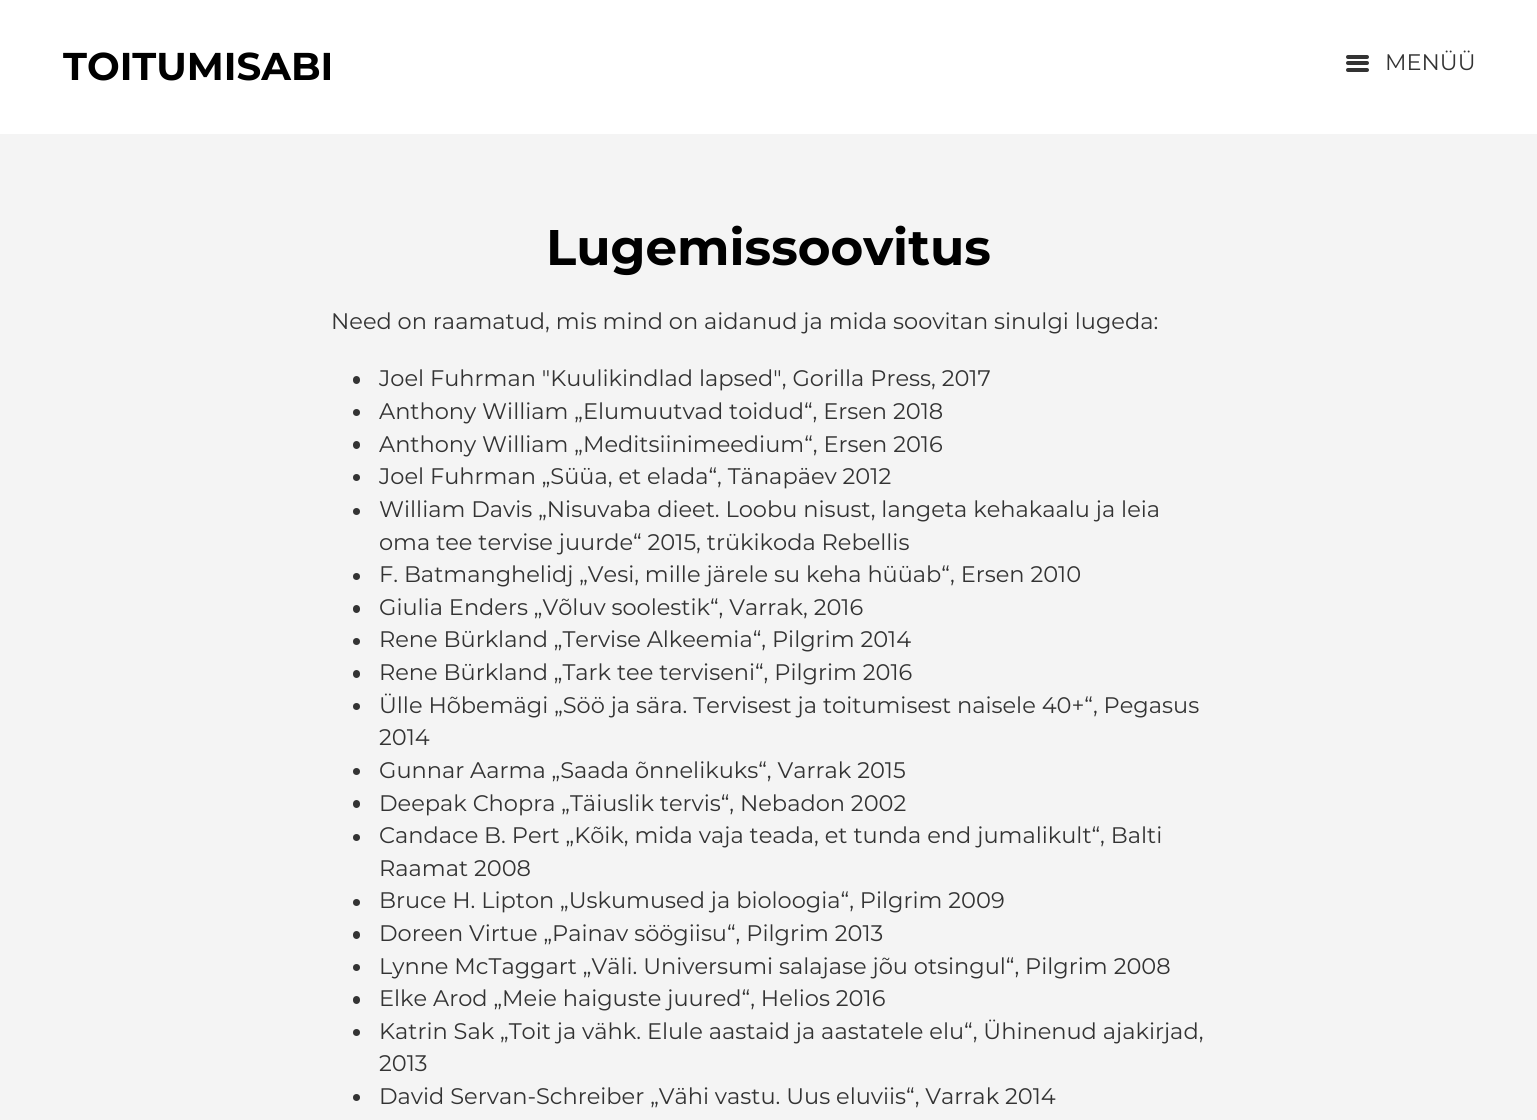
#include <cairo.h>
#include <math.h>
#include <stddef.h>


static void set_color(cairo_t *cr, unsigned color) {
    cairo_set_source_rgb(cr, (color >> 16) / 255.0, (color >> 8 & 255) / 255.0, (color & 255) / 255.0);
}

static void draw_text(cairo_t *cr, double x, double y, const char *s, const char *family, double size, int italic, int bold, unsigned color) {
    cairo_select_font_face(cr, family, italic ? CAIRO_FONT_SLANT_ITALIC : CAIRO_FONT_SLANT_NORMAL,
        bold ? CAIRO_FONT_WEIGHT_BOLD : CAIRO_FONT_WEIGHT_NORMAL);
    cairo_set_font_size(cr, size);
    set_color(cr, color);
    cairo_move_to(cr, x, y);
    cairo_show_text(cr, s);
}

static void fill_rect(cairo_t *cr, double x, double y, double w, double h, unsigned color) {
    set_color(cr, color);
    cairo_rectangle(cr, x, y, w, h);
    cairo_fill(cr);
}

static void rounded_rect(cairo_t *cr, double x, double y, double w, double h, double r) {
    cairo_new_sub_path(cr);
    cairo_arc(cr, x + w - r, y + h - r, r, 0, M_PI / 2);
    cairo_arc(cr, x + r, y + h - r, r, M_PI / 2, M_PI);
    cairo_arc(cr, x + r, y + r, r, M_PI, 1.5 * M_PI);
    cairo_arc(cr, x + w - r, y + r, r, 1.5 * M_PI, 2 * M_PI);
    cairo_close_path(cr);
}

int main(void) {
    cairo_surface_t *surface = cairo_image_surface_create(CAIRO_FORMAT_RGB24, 1537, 1120);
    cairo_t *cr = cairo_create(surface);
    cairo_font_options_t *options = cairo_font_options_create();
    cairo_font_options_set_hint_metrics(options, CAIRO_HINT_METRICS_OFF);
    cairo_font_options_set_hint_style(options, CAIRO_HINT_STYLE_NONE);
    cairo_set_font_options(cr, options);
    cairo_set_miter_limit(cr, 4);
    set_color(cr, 0xF4F4F4);
    cairo_paint(cr);
    fill_rect(cr, 0, 0, 1537, 134, 0xFFFFFF);
    draw_text(cr, 63, 80, "TOITUMISABI", "Montserrat", 38.75, 0, 1, 0x000000);
    set_color(cr, 0x333333);
    rounded_rect(cr, 1346, 61, 23, 4, 2);
    cairo_fill(cr);
    rounded_rect(cr, 1346, 55, 23, 4, 2);
    cairo_fill(cr);
    draw_text(cr, 1385, 70, "MENÜÜ", "Montserrat", 22.5, 0, 0, 0x333333);
    rounded_rect(cr, 1346, 68, 23, 4, 2);
    cairo_fill(cr);
    draw_text(cr, 546, 265, "Lugemissoovitus", "Montserrat", 50, 0, 1, 0x000000);
    draw_text(cr, 331, 329, "Need on raamatud, mis mind on aidanud ja mida soovitan sinulgi lugeda:", "Montserrat", 22.5, 0, 0, 0x333333);
    rounded_rect(cr, 353, 376, 7, 8, 3.5);
    cairo_fill(cr);
    draw_text(cr, 379, 386, "Joel Fuhrman \"Kuulikindlad lapsed\", Gorilla Press, 2017", "Montserrat", 22.5, 0, 0, 0x333333);
    cairo_new_path(cr);
    cairo_arc(cr, 356.5, 412.5, 3.5, 0, 2 * M_PI);
    cairo_fill(cr);
    draw_text(cr, 379, 419, "Anthony William „Elumuutvad toidud“, Ersen 2018", "Montserrat", 22.5, 0, 0, 0x333333);
    rounded_rect(cr, 353, 441, 7, 8, 3.5);
    cairo_fill(cr);
    draw_text(cr, 379, 452, "Anthony William „Meditsiinimeedium“, Ersen 2016", "Montserrat", 22.5, 0, 0, 0x333333);
    cairo_new_path(cr);
    cairo_arc(cr, 356.5, 477.5, 3.5, 0, 2 * M_PI);
    cairo_fill(cr);
    draw_text(cr, 379, 484, "Joel Fuhrman „Süüa, et elada“, Tänapäev 2012", "Montserrat", 22.5, 0, 0, 0x333333);
    cairo_new_path(cr);
    cairo_arc(cr, 356.5, 511.5, 3.5, 0, 2 * M_PI);
    cairo_fill(cr);
    draw_text(cr, 379, 517, "William Davis „Nisuvaba dieet. Loobu nisust, langeta kehakaalu ja leia", "Montserrat", 22.5, 0, 0, 0x333333);
    draw_text(cr, 379, 550, "oma tee tervise juurde“ 2015, trükikoda Rebellis", "Montserrat", 22.5, 0, 0, 0x333333);
    cairo_new_path(cr);
    cairo_arc(cr, 356.5, 576.5, 3.5, 0, 2 * M_PI);
    cairo_fill(cr);
    draw_text(cr, 379, 582, "F. Batmanghelidj „Vesi, mille järele su keha hüüab“, Ersen 2010", "Montserrat", 22.5, 0, 0, 0x333333);
    rounded_rect(cr, 353, 605, 7, 8, 3.5);
    cairo_fill(cr);
    draw_text(cr, 379, 615, "Giulia Enders „Võluv soolestik“, Varrak, 2016", "Montserrat", 22.5, 0, 0, 0x333333);
    cairo_new_path(cr);
    cairo_arc(cr, 356.5, 641.5, 3.5, 0, 2 * M_PI);
    cairo_fill(cr);
    draw_text(cr, 379, 647, "Rene Bürkland „Tervise Alkeemia“, Pilgrim 2014", "Montserrat", 22.5, 0, 0, 0x333333);
    rounded_rect(cr, 353, 670, 7, 8, 3.5);
    cairo_fill(cr);
    draw_text(cr, 379, 680, "Rene Bürkland „Tark tee terviseni“, Pilgrim 2016", "Montserrat", 22.5, 0, 0, 0x333333);
    cairo_new_path(cr);
    cairo_arc(cr, 356.5, 706.5, 3.5, 0, 2 * M_PI);
    cairo_fill(cr);
    draw_text(cr, 379, 713, "Ülle Hõbemägi „Söö ja sära. Tervisest ja toitumisest naisele 40+“, Pegasus", "Montserrat", 22.5, 0, 0, 0x333333);
    draw_text(cr, 379, 745, "2014", "Montserrat", 22.5, 0, 0, 0x333333);
    cairo_new_path(cr);
    cairo_arc(cr, 356.5, 771.5, 3.5, 0, 2 * M_PI);
    cairo_fill(cr);
    draw_text(cr, 379, 778, "Gunnar Aarma „Saada õnnelikuks“, Varrak 2015", "Montserrat", 22.5, 0, 0, 0x333333);
    rounded_rect(cr, 353, 800, 7, 8, 3.5);
    cairo_fill(cr);
    draw_text(cr, 379, 811, "Deepak Chopra „Täiuslik tervis“, Nebadon 2002", "Montserrat", 22.5, 0, 0, 0x333333);
    cairo_new_path(cr);
    cairo_arc(cr, 356.5, 837.5, 3.5, 0, 2 * M_PI);
    cairo_fill(cr);
    draw_text(cr, 379, 843, "Candace B. Pert „Kõik, mida vaja teada, et tunda end jumalikult“, Balti", "Montserrat", 22.5, 0, 0, 0x333333);
    draw_text(cr, 379, 876, "Raamat 2008", "Montserrat", 22.5, 0, 0, 0x333333);
    cairo_new_path(cr);
    cairo_arc(cr, 356.5, 902.5, 3.5, 0, 2 * M_PI);
    cairo_fill(cr);
    draw_text(cr, 379, 908, "Bruce H. Lipton „Uskumused ja bioloogia“, Pilgrim 2009", "Montserrat", 22.5, 0, 0, 0x333333);
    rounded_rect(cr, 353, 931, 7, 8, 3.5);
    cairo_fill(cr);
    draw_text(cr, 379, 941, "Doreen Virtue „Painav söögiisu“, Pilgrim 2013", "Montserrat", 22.5, 0, 0, 0x333333);
    cairo_new_path(cr);
    cairo_arc(cr, 356.5, 967.5, 3.5, 0, 2 * M_PI);
    cairo_fill(cr);
    draw_text(cr, 379, 974, "Lynne McTaggart „Väli. Universumi salajase jõu otsingul“, Pilgrim 2008", "Montserrat", 22.5, 0, 0, 0x333333);
    rounded_rect(cr, 353, 996, 7, 8, 3.5);
    cairo_fill(cr);
    draw_text(cr, 379, 1006, "Elke Arod „Meie haiguste juured“, Helios 2016", "Montserrat", 22.5, 0, 0, 0x333333);
    cairo_new_path(cr);
    cairo_arc(cr, 356.5, 1032.5, 3.5, 0, 2 * M_PI);
    cairo_fill(cr);
    draw_text(cr, 379, 1039, "Katrin Sak „Toit ja vähk. Elule aastaid ja aastatele elu“, Ühinenud ajakirjad,", "Montserrat", 22.5, 0, 0, 0x333333);
    draw_text(cr, 379, 1071, "2013", "Montserrat", 22.5, 0, 0, 0x333333);
    cairo_new_path(cr);
    cairo_arc(cr, 356.5, 1097.5, 3.5, 0, 2 * M_PI);
    cairo_fill(cr);
    draw_text(cr, 379, 1104, "David Servan-Schreiber „Vähi vastu. Uus eluviis“, Varrak 2014", "Montserrat", 22.5, 0, 0, 0x333333);
    cairo_surface_write_to_png(surface, "output.png");
    cairo_font_options_destroy(options);
    cairo_destroy(cr);
    cairo_surface_destroy(surface);
    return 0;
}
